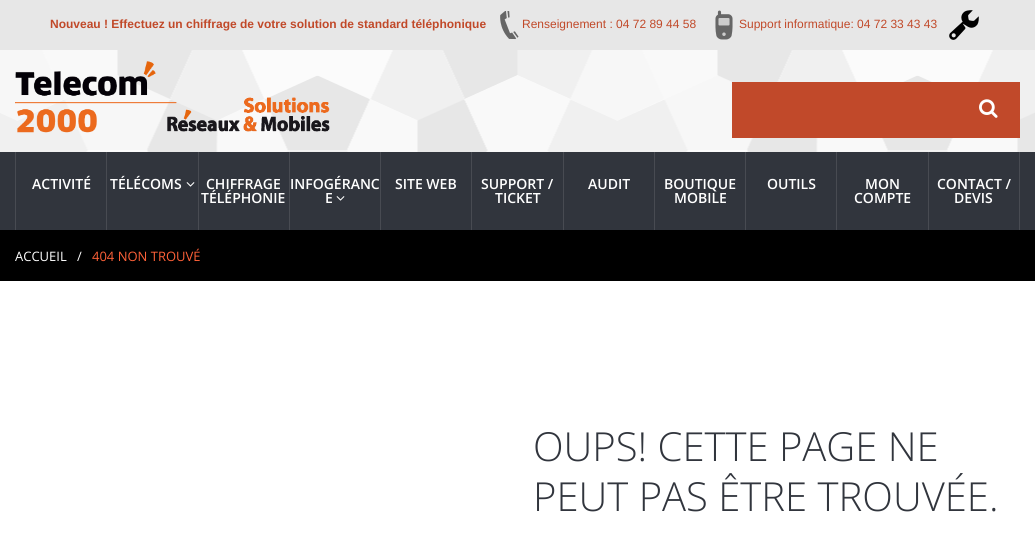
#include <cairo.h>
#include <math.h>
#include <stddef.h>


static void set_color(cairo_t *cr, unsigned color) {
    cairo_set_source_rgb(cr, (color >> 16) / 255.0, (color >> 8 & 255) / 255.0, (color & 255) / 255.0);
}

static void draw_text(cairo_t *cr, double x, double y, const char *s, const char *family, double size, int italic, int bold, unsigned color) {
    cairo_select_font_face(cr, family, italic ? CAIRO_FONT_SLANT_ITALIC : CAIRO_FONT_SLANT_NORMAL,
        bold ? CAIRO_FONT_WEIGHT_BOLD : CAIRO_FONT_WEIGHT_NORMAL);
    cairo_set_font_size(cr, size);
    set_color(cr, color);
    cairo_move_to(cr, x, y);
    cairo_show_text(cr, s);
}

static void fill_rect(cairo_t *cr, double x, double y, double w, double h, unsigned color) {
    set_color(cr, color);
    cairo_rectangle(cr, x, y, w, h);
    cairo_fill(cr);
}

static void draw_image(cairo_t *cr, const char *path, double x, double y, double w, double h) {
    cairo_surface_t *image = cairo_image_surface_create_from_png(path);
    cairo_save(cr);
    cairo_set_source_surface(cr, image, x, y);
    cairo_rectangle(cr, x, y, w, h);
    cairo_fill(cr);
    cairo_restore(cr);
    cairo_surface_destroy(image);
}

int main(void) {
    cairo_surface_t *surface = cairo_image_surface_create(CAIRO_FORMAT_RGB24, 1035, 550);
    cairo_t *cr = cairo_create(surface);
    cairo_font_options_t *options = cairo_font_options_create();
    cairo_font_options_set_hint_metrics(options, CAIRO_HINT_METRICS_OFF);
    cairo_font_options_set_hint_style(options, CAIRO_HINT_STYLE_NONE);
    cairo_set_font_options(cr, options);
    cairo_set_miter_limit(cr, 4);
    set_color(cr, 0xFFFFFF);
    cairo_paint(cr);
    fill_rect(cr, 0, 0, 1035, 50, 0xE7E7E7);
    draw_text(cr, 50, 28, "Nouveau ! Effectuez un chiffrage de votre solution de standard téléphonique", "Liberation Sans", 12, 0, 1, 0xC14929);
    draw_image(cr, "assets/img1.png", 500, 11, 19, 29);
    draw_text(cr, 522, 28, "Renseignement : 04 72 89 44 58", "Liberation Sans", 12, 0, 0, 0xC14929);
    draw_image(cr, "assets/img2.png", 715, 10, 18, 30);
    draw_text(cr, 739, 28, "Support informatique: 04 72 33 43 43", "Liberation Sans", 12, 0, 0, 0xC14929);
    draw_image(cr, "assets/img3.png", 949, 10, 30, 30);
    draw_image(cr, "assets/img4.png", 0, 50, 1035, 102);
    draw_image(cr, "assets/img5.png", 15, 61, 315, 72);
    fill_rect(cr, 732, 82, 288, 56, 0xC1492A);
    draw_image(cr, "assets/img6.png", 979, 99, 19, 19);
    fill_rect(cr, 0, 152, 1035, 78, 0x31353D);
    fill_rect(cr, 1019, 152, 1, 78, 0x484B52);
    fill_rect(cr, 15, 152, 1, 78, 0x484B52);
    draw_text(cr, 32, 189, "ACTIVITÉ", "Open Sans SemiBold", 14, 0, 0, 0xFFFFFF);
    fill_rect(cr, 106, 152, 1, 78, 0x484B52);
    draw_text(cr, 110, 189, "TÉLÉCOMS", "Open Sans SemiBold", 14, 0, 0, 0xFFFFFF);
    draw_image(cr, "assets/img7.png", 186, 182, 9, 5);
    fill_rect(cr, 198, 152, 1, 78, 0x484B52);
    draw_text(cr, 206, 189, "CHIFFRAGE", "Open Sans SemiBold", 14, 0, 0, 0xFFFFFF);
    draw_text(cr, 201, 203, "TÉLÉPHONIE", "Open Sans SemiBold", 14, 0, 0, 0xFFFFFF);
    fill_rect(cr, 289, 152, 1, 78, 0x484B52);
    draw_text(cr, 290, 189, "INFOGÉRANC", "Open Sans SemiBold", 14, 0, 0, 0xFFFFFF);
    draw_text(cr, 325, 203, "E", "Open Sans SemiBold", 14, 0, 0, 0xFFFFFF);
    draw_image(cr, "assets/img7.png", 336, 196, 9, 5);
    fill_rect(cr, 380, 152, 1, 78, 0x484B52);
    draw_text(cr, 395, 189, "SITE WEB", "Open Sans SemiBold", 14, 0, 0, 0xFFFFFF);
    fill_rect(cr, 471, 152, 1, 78, 0x484B52);
    draw_text(cr, 481, 189, "SUPPORT /", "Open Sans SemiBold", 14, 0, 0, 0xFFFFFF);
    draw_text(cr, 495, 203, "TICKET", "Open Sans SemiBold", 14, 0, 0, 0xFFFFFF);
    fill_rect(cr, 563, 152, 1, 78, 0x484B52);
    draw_text(cr, 588, 189, "AUDIT", "Open Sans SemiBold", 14, 0, 0, 0xFFFFFF);
    fill_rect(cr, 654, 152, 1, 78, 0x484B52);
    draw_text(cr, 664, 189, "BOUTIQUE", "Open Sans SemiBold", 14, 0, 0, 0xFFFFFF);
    draw_text(cr, 674, 203, "MOBILE", "Open Sans SemiBold", 14, 0, 0, 0xFFFFFF);
    fill_rect(cr, 745, 152, 1, 78, 0x484B52);
    draw_text(cr, 767, 189, "OUTILS", "Open Sans SemiBold", 14, 0, 0, 0xFFFFFF);
    fill_rect(cr, 836, 152, 1, 78, 0x484B52);
    draw_text(cr, 865, 189, "MON", "Open Sans SemiBold", 14, 0, 0, 0xFFFFFF);
    draw_text(cr, 854, 203, "COMPTE", "Open Sans SemiBold", 14, 0, 0, 0xFFFFFF);
    fill_rect(cr, 928, 152, 1, 78, 0x484B52);
    draw_text(cr, 937, 189, "CONTACT /", "Open Sans SemiBold", 14, 0, 0, 0xFFFFFF);
    draw_text(cr, 954, 203, "DEVIS", "Open Sans SemiBold", 14, 0, 0, 0xFFFFFF);
    fill_rect(cr, 0, 230, 1035, 51, 0x000000);
    draw_text(cr, 15, 261, "ACCUEIL", "Open Sans", 13, 0, 0, 0xFFFFFF);
    draw_text(cr, 77, 261, "/", "Open Sans", 13, 0, 0, 0xFFFFFF);
    draw_text(cr, 92, 261, "404 NON TROUVÉ", "Open Sans", 13, 0, 0, 0xFF6138);
    draw_text(cr, 533, 461, "OUPS! CETTE PAGE NE", "Open Sans Light", 40, 0, 0, 0x31353D);
    draw_text(cr, 533, 511, "PEUT PAS ÊTRE TROUVÉE.", "Open Sans Light", 40, 0, 0, 0x31353D);
    cairo_surface_write_to_png(surface, "output.png");
    cairo_font_options_destroy(options);
    cairo_destroy(cr);
    cairo_surface_destroy(surface);
    return 0;
}
